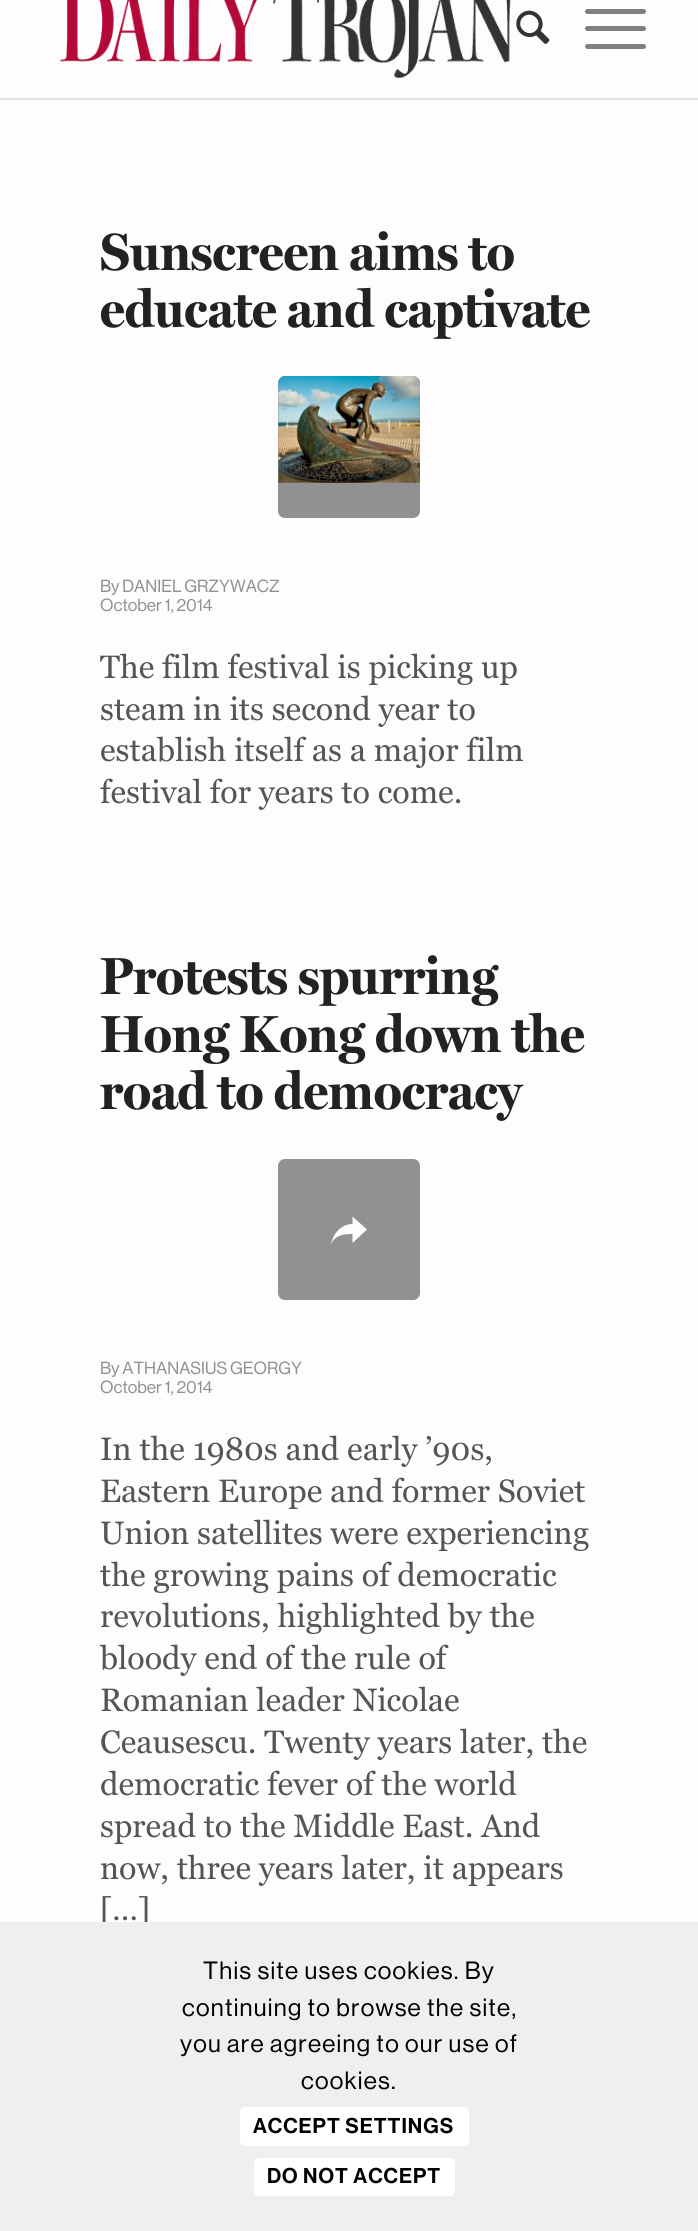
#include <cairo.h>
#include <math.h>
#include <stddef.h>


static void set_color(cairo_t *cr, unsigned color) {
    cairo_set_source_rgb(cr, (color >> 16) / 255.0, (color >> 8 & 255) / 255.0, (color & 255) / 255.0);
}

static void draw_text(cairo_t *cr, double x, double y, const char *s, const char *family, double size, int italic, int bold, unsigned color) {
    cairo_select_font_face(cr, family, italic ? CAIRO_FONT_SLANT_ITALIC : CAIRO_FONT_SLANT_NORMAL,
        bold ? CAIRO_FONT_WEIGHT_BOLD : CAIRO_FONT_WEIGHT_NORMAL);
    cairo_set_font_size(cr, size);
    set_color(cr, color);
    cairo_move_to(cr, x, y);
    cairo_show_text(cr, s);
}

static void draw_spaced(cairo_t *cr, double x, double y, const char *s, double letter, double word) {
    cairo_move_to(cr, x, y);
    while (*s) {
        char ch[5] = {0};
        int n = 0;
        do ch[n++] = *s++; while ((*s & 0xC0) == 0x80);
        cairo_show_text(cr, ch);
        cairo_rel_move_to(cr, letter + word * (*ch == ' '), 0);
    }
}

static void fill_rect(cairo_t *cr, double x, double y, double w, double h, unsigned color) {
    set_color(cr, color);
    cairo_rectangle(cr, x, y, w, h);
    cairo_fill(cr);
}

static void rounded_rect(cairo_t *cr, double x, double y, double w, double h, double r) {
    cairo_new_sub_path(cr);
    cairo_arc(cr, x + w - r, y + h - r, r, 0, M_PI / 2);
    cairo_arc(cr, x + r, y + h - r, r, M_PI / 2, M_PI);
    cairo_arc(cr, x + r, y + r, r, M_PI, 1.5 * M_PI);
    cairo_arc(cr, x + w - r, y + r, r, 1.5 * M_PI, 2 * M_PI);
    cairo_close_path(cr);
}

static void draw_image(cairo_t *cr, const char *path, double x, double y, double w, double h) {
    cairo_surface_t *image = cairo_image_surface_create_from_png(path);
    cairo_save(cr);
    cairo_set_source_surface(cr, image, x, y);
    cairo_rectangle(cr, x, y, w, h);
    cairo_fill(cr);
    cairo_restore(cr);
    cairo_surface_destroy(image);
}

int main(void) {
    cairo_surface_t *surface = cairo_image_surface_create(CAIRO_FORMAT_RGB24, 698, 2231);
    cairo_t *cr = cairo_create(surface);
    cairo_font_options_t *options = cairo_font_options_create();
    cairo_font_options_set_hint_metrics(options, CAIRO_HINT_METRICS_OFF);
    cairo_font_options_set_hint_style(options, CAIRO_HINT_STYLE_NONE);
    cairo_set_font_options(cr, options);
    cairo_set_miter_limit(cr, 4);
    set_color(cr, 0xFDFDFD);
    cairo_paint(cr);
    fill_rect(cr, 0, 98, 698, 2, 0xE1E1E1);
    draw_image(cr, "assets/img1.png", 59, 0, 452, 79);
    draw_image(cr, "assets/img2.png", 516, 10, 34, 34);
    set_color(cr, 0x808080);
    rounded_rect(cr, 585, 26, 61, 5, 2.5);
    cairo_fill(cr);
    rounded_rect(cr, 585, 9, 61, 5, 2.5);
    cairo_fill(cr);
    rounded_rect(cr, 585, 44, 61, 5, 2.5);
    cairo_fill(cr);
    draw_text(cr, 100, 270, "Sunscreen aims to", "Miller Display", 52.5, 0, 1, 0x222222);
    draw_text(cr, 100, 327, "educate and captivate", "Miller Display", 52.5, 0, 1, 0x222222);
    set_color(cr, 0x919191);
    rounded_rect(cr, 278, 376, 142, 142, 7);
    cairo_fill(cr);
    draw_image(cr, "assets/img3.png", 278, 376, 142, 107);
    draw_text(cr, 100, 592, "By DANIEL GRZYWACZ", "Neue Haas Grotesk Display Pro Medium", 17.25, 0, 0, 0x919191);
    draw_text(cr, 100, 611, "October 1, 2014", "Neue Haas Grotesk Display Pro Medium", 17.25, 0, 0, 0x919191);
    draw_text(cr, 100, 678, "The film festival is picking up", "Georgia", 32.25, 0, 0, 0x555555);
    draw_text(cr, 100, 720, "steam in its second year to", "Georgia", 32.25, 0, 0, 0x555555);
    draw_text(cr, 100, 761, "establish itself as a major film", "Georgia", 32.25, 0, 0, 0x555555);
    draw_text(cr, 100, 803, "festival for years to come.", "Georgia", 32.25, 0, 0, 0x555555);
    draw_text(cr, 100, 994, "Protests spurring", "Miller Display", 52.5, 0, 1, 0x222222);
    draw_text(cr, 100, 1052, "Hong Kong down the", "Miller Display", 52.5, 0, 1, 0x222222);
    draw_text(cr, 100, 1109, "road to democracy", "Miller Display", 52.5, 0, 1, 0x222222);
    set_color(cr, 0x919191);
    rounded_rect(cr, 278, 1159, 142, 141, 7);
    cairo_fill(cr);
    set_color(cr, 0xFDFDFD);
    cairo_new_path(cr);
    cairo_move_to(cr, 352.5, 1234);
    cairo_curve_to(cr, 343, 1234, 335.5, 1235, 331, 1244);
    cairo_curve_to(cr, 333, 1233.5, 341.5, 1224, 352.5, 1224);
    cairo_line_to(cr, 352.5, 1216.5);
    cairo_line_to(cr, 367, 1229.5);
    cairo_line_to(cr, 352.5, 1243);
    cairo_close_path(cr);
    cairo_fill(cr);
    draw_text(cr, 100, 1374, "By ATHANASIUS GEORGY", "Neue Haas Grotesk Display Pro Medium", 17.25, 0, 0, 0x919191);
    draw_text(cr, 100, 1393, "October 1, 2014", "Neue Haas Grotesk Display Pro Medium", 17.25, 0, 0, 0x919191);
    draw_text(cr, 100, 1460, "In the 1980s and early ’90s,", "Georgia", 32.25, 0, 0, 0x555555);
    draw_text(cr, 100, 1502, "Eastern Europe and former Soviet", "Georgia", 32.25, 0, 0, 0x555555);
    draw_text(cr, 100, 1544, "Union satellites were experiencing", "Georgia", 32.25, 0, 0, 0x555555);
    draw_text(cr, 100, 1586, "the growing pains of democratic", "Georgia", 32.25, 0, 0, 0x555555);
    draw_text(cr, 100, 1627, "revolutions, highlighted by the", "Georgia", 32.25, 0, 0, 0x555555);
    draw_text(cr, 100, 1669, "bloody end of the rule of", "Georgia", 32.25, 0, 0, 0x555555);
    draw_text(cr, 100, 1711, "Romanian leader Nicolae", "Georgia", 32.25, 0, 0, 0x555555);
    draw_text(cr, 100, 1753, "Ceausescu. Twenty years later, the", "Georgia", 32.25, 0, 0, 0x555555);
    draw_text(cr, 100, 1795, "democratic fever of the world", "Georgia", 32.25, 0, 0, 0x555555);
    draw_text(cr, 100, 1837, "spread to the Middle East. And", "Georgia", 32.25, 0, 0, 0x555555);
    draw_text(cr, 100, 1879, "now, three years later, it appears", "Georgia", 32.25, 0, 0, 0x555555);
    draw_text(cr, 100, 1920, "[…]", "Georgia", 32.25, 0, 0, 0x555555);
    fill_rect(cr, 0, 1922, 698, 309, 0xEFEFEF);
    cairo_select_font_face(cr, "Neue Haas Grotesk Display Pro Medium", CAIRO_FONT_SLANT_NORMAL, CAIRO_FONT_WEIGHT_NORMAL);
    cairo_set_font_size(cr, 24.5);
    set_color(cr, 0x000000);
    draw_spaced(cr, 203, 1979, "This site uses cookies. By", 1.25, 0);
    draw_spaced(cr, 182, 2016, "continuing to browse the site,", 1.25, 0);
    draw_spaced(cr, 180, 2052, "you are agreeing to our use of", 1.25, 0);
    draw_spaced(cr, 301, 2089, "cookies.", 1.25, 0);
    set_color(cr, 0xFFFFFF);
    rounded_rect(cr, 240, 2107, 229, 39, 5);
    cairo_fill(cr);
    cairo_select_font_face(cr, "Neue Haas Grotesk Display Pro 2 Medium", CAIRO_FONT_SLANT_NORMAL, CAIRO_FONT_WEIGHT_NORMAL);
    cairo_set_font_size(cr, 21);
    set_color(cr, 0x000000);
    draw_spaced(cr, 253, 2133, "ACCEPT SETTINGS", 1, 0);
    set_color(cr, 0xFFFFFF);
    rounded_rect(cr, 254, 2158, 201, 38, 5);
    cairo_fill(cr);
    set_color(cr, 0x000000);
    draw_spaced(cr, 267, 2183, "DO NOT ACCEPT", 1, 0);
    cairo_surface_write_to_png(surface, "output.png");
    cairo_font_options_destroy(options);
    cairo_destroy(cr);
    cairo_surface_destroy(surface);
    return 0;
}
